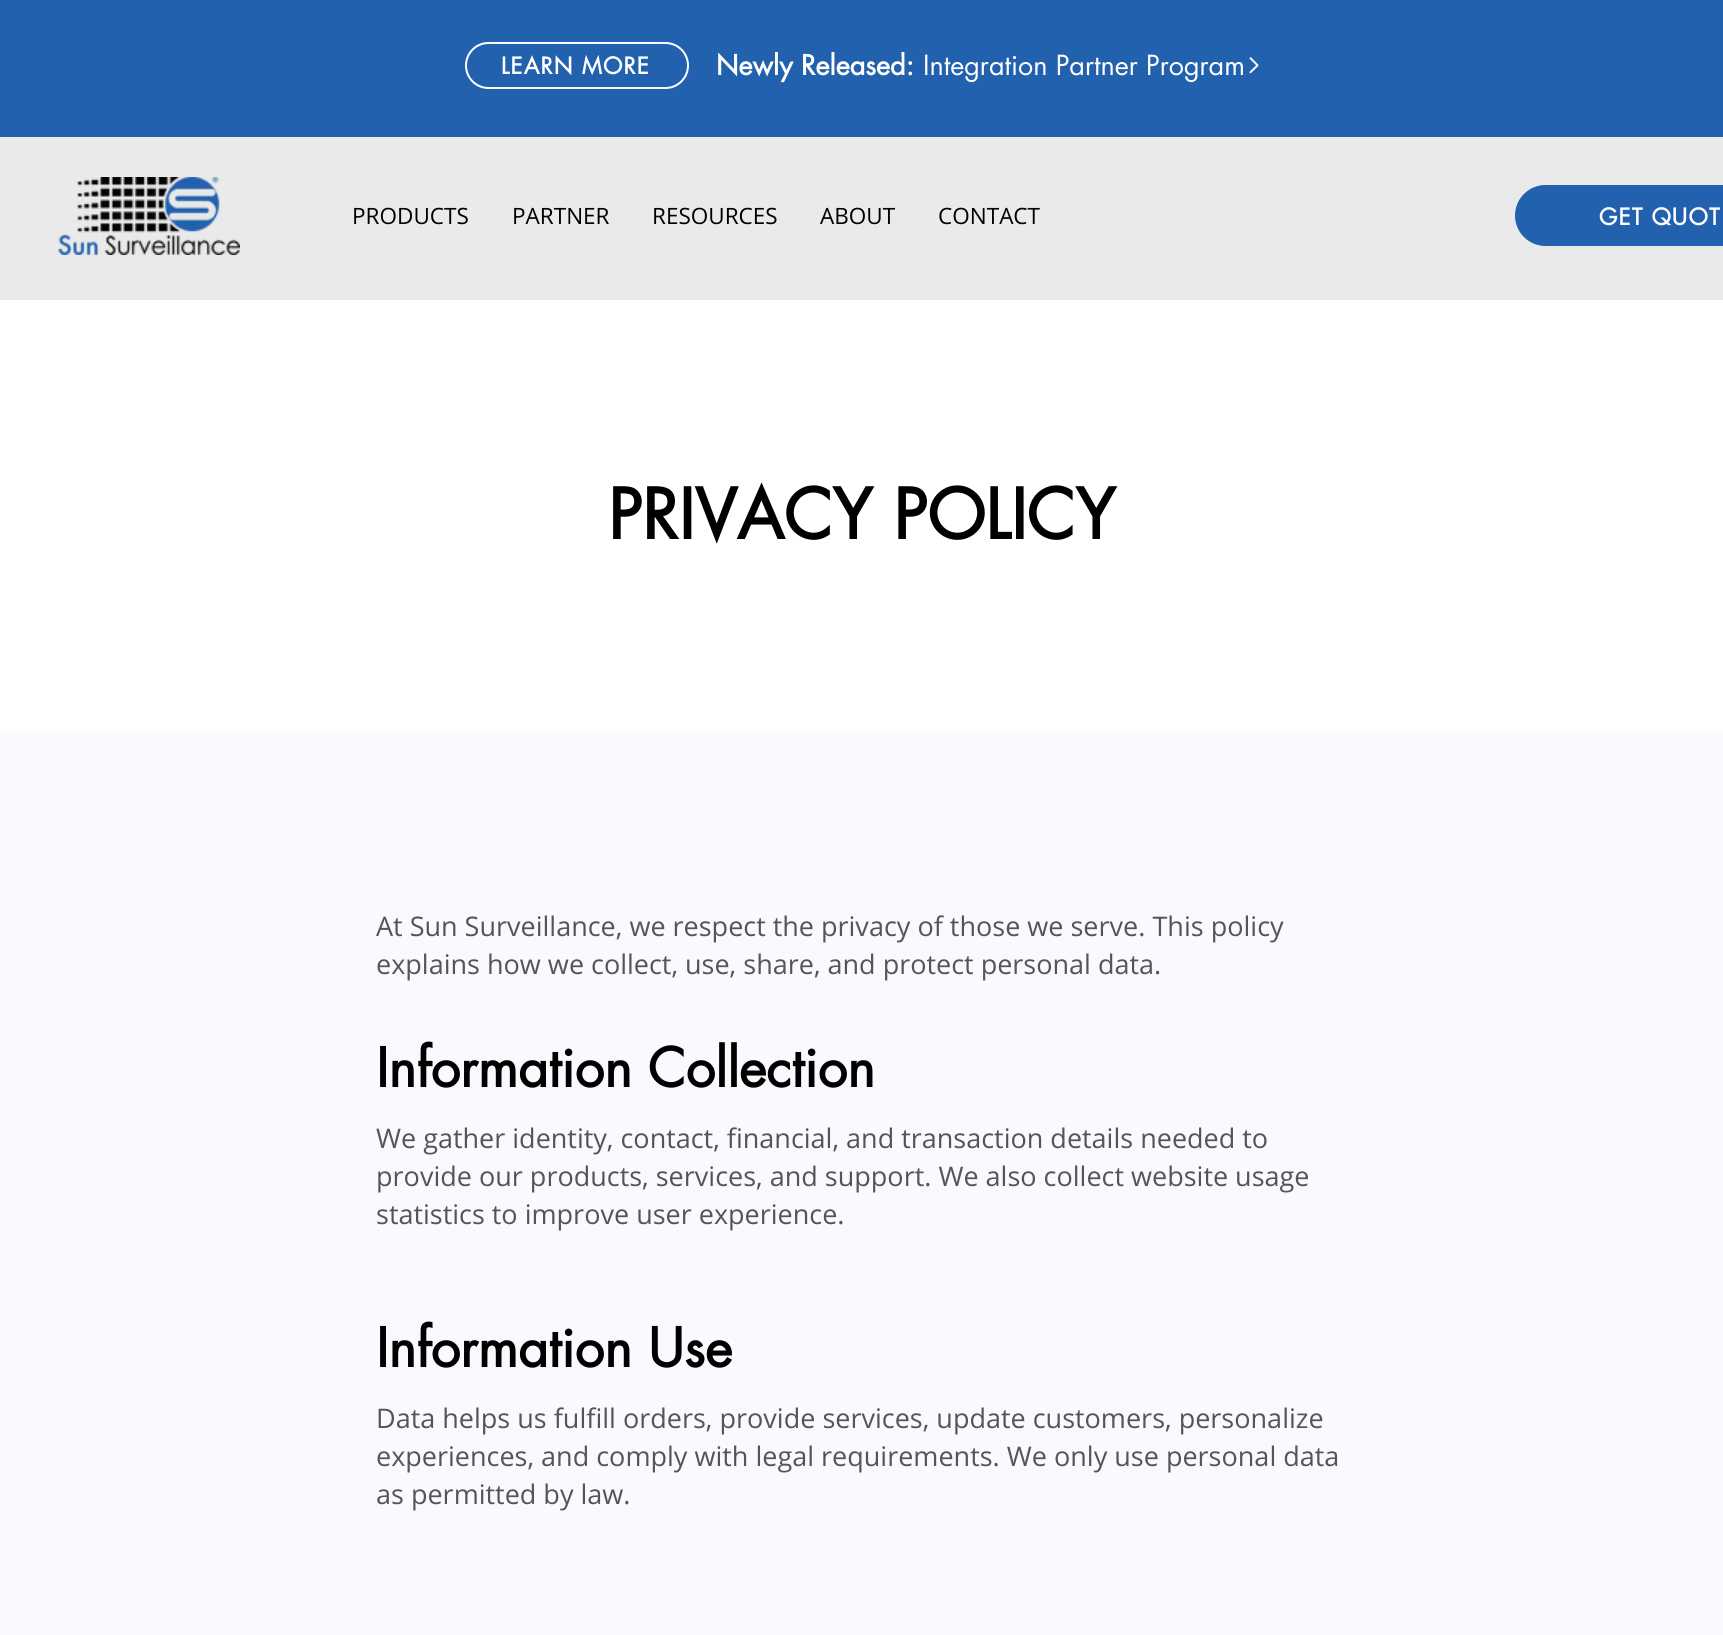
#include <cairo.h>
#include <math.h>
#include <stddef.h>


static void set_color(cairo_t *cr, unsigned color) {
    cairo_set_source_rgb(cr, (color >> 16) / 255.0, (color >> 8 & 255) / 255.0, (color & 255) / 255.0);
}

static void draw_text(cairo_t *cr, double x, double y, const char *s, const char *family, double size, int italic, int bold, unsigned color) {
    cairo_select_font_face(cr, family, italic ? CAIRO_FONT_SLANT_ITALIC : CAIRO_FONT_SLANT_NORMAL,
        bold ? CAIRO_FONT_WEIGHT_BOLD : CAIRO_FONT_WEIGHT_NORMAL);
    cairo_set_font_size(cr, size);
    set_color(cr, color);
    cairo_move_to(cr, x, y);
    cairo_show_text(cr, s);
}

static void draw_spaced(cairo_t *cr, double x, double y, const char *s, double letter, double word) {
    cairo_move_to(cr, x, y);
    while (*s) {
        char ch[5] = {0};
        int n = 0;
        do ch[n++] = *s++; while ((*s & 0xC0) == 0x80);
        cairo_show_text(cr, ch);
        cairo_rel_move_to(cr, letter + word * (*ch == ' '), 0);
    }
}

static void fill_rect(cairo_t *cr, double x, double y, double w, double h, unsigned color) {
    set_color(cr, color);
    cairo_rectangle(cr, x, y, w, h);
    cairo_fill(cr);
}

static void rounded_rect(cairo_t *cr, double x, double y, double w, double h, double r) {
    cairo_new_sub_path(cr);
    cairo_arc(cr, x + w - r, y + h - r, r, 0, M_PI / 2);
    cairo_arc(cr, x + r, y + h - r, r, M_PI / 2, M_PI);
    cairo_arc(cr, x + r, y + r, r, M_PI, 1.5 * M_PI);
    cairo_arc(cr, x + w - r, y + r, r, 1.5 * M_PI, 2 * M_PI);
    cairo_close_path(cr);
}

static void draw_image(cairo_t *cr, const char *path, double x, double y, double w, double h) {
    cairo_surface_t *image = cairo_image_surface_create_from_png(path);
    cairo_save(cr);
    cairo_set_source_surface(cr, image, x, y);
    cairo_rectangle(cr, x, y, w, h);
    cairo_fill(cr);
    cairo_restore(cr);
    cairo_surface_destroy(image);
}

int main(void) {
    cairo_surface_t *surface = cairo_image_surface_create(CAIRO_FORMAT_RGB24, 1723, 1635);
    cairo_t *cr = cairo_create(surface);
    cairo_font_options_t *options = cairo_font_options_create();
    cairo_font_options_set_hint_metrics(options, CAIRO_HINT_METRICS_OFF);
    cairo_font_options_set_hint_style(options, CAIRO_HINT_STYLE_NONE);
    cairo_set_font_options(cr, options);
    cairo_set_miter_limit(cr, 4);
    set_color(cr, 0xFFFFFF);
    cairo_paint(cr);
    fill_rect(cr, 0, 0, 1723, 137, 0x2261AE);
    rounded_rect(cr, 466, 43, 222, 45, 22.5);
    set_color(cr, 0xFFFFFF);
    cairo_stroke(cr);
    cairo_select_font_face(cr, "futura", CAIRO_FONT_SLANT_NORMAL, CAIRO_FONT_WEIGHT_BOLD);
    cairo_set_font_size(cr, 22.5);
    draw_spaced(cr, 501, 74, "LEARN MORE", 1.1, 0);
    draw_text(cr, 716, 75, "Newly Released:", "futura", 27, 0, 1, 0xFFFFFF);
    draw_text(cr, 923, 75, "Integration Partner Program", "futura", 27, 0, 0, 0xFFFFFF);
    draw_image(cr, "assets/img1.png", 1249, 57, 10, 17);
    fill_rect(cr, 0, 137, 1723, 163, 0xEAEAEA);
    draw_image(cr, "assets/img2.png", 58, 177, 182, 78);
    draw_text(cr, 352, 224, "PRODUCTS", "Open Sans", 22.5, 0, 0, 0x000000);
    draw_text(cr, 512, 224, "PARTNER", "Open Sans", 22.5, 0, 0, 0x000000);
    draw_text(cr, 652, 224, "RESOURCES", "Open Sans", 22.5, 0, 0, 0x000000);
    draw_text(cr, 820, 224, "ABOUT", "Open Sans", 22.5, 0, 0, 0x000000);
    draw_text(cr, 938, 224, "CONTACT", "Open Sans", 22.5, 0, 0, 0x000000);
    set_color(cr, 0x2261AE);
    rounded_rect(cr, 1515, 185, 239, 61, 30.5);
    cairo_fill(cr);
    cairo_select_font_face(cr, "futura", CAIRO_FONT_SLANT_NORMAL, CAIRO_FONT_WEIGHT_BOLD);
    set_color(cr, 0xFFFFFF);
    draw_spaced(cr, 1599, 225, "GET QUOT", 1.1, 0);
    draw_text(cr, 608, 539, "PRIVACY POLICY", "futura", 67.5, 0, 1, 0x000000);
    fill_rect(cr, 0, 731, 1723, 904, 0xF9FAFE);
    draw_text(cr, 376, 936, "At Sun Surveillance, we respect the privacy of those we serve. This policy", "Open Sans", 27, 0, 0, 0x555555);
    draw_text(cr, 376, 974, "explains how we collect, use, share, and protect personal data.", "Open Sans", 27, 0, 0, 0x555555);
    draw_text(cr, 376, 1087, "Information Collection", "futura", 52.5, 0, 1, 0x000000);
    draw_text(cr, 376, 1148, "We gather identity, contact, financial, and transaction details needed to", "Open Sans", 27, 0, 0, 0x555555);
    draw_text(cr, 376, 1186, "provide our products, services, and support. We also collect website usage", "Open Sans", 27, 0, 0, 0x555555);
    draw_text(cr, 376, 1224, "statistics to improve user experience.", "Open Sans", 27, 0, 0, 0x555555);
    draw_text(cr, 376, 1367, "Information Use", "futura", 52.5, 0, 1, 0x000000);
    draw_text(cr, 376, 1428, "Data helps us fulfill orders, provide services, update customers, personalize", "Open Sans", 27, 0, 0, 0x555555);
    draw_text(cr, 376, 1466, "experiences, and comply with legal requirements. We only use personal data", "Open Sans", 27, 0, 0, 0x555555);
    draw_text(cr, 376, 1504, "as permitted by law.", "Open Sans", 27, 0, 0, 0x555555);
    cairo_surface_write_to_png(surface, "output.png");
    cairo_font_options_destroy(options);
    cairo_destroy(cr);
    cairo_surface_destroy(surface);
    return 0;
}
